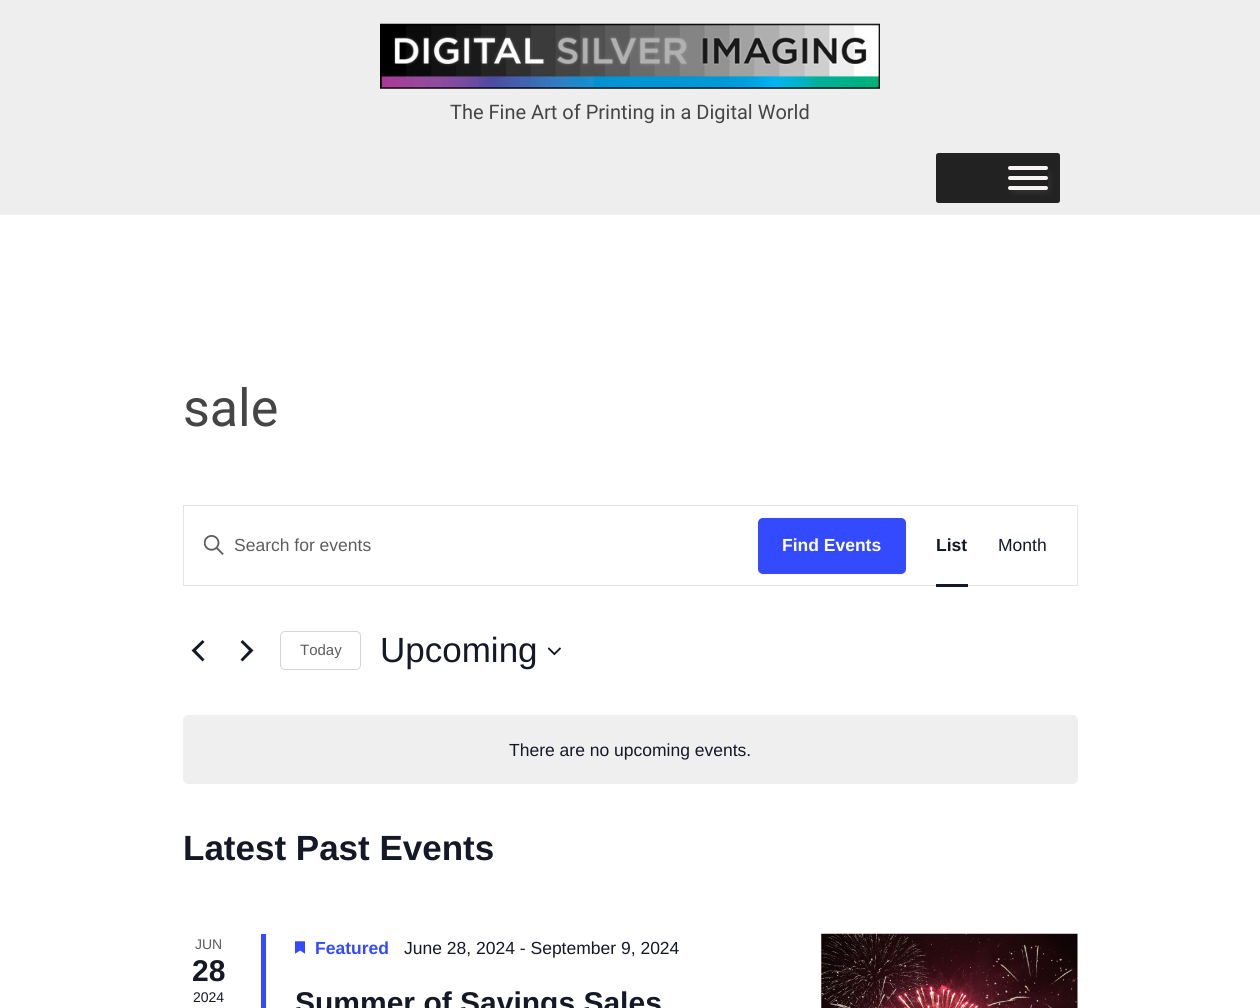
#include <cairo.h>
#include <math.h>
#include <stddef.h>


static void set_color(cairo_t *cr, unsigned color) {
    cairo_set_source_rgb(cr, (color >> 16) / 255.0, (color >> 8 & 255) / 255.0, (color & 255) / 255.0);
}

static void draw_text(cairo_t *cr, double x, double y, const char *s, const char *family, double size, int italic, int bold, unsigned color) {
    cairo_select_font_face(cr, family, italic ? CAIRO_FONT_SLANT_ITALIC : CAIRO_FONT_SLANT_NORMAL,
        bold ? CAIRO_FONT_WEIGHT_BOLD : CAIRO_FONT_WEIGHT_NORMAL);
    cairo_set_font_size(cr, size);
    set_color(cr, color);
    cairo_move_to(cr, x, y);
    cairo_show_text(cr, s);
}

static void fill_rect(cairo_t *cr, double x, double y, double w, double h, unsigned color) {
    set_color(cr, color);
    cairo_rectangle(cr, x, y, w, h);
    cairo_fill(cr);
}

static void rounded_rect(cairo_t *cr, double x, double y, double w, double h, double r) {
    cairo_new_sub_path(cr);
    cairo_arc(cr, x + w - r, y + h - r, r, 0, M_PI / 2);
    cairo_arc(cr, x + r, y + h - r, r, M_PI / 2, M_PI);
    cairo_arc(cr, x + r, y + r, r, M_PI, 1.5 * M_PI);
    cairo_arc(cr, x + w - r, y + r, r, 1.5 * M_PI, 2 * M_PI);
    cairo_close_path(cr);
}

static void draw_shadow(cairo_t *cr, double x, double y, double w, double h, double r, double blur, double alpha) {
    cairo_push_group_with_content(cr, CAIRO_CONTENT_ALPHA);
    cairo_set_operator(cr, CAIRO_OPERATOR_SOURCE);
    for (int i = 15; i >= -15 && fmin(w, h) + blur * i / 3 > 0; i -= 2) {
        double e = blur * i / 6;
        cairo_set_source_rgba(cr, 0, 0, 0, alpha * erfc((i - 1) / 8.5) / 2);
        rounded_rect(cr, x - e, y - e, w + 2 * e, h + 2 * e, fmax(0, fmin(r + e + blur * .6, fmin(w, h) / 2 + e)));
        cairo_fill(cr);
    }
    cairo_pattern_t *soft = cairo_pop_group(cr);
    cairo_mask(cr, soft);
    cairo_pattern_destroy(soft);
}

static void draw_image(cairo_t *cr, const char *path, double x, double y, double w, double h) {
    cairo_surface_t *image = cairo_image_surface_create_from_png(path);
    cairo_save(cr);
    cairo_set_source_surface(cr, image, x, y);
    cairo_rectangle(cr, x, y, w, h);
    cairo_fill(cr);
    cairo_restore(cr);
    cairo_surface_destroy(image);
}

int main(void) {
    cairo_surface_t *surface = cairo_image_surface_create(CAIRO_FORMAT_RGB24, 1260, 1008);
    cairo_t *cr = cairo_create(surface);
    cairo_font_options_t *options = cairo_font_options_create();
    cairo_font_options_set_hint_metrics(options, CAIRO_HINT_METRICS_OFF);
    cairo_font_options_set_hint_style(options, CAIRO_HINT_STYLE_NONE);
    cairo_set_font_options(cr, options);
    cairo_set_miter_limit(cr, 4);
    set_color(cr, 0xFFFFFF);
    cairo_paint(cr);
    fill_rect(cr, 0, 0, 1260, 215, 0xEEEEEE);
    draw_image(cr, "assets/img1.png", 380, 23, 500, 66);
    draw_text(cr, 450, 119, "The Fine Art of Printing in a Digital World", "Roboto", 20, 0, 0, 0x454545);
    set_color(cr, 0x222222);
    rounded_rect(cr, 936, 153, 124, 50, 2.5);
    cairo_fill(cr);
    cairo_save(cr);
    cairo_set_fill_rule(cr, CAIRO_FILL_RULE_EVEN_ODD);
    cairo_new_path(cr);
    cairo_move_to(cr, 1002, 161);
    cairo_line_to(cr, 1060, 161);
    cairo_line_to(cr, 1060, 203);
    cairo_line_to(cr, 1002, 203);
    cairo_close_path(cr);
    cairo_move_to(cr, 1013, 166);
    cairo_line_to(cr, 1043, 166);
    cairo_curve_to(cr, 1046, 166, 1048, 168, 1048, 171);
    cairo_line_to(cr, 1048, 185);
    cairo_curve_to(cr, 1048, 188, 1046, 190, 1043, 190);
    cairo_line_to(cr, 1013, 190);
    cairo_curve_to(cr, 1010, 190, 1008, 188, 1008, 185);
    cairo_line_to(cr, 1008, 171);
    cairo_curve_to(cr, 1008, 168, 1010, 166, 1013, 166);
    cairo_close_path(cr);
    cairo_clip(cr);
    set_color(cr, 0x323232);
    draw_shadow(cr, 1011, 170, 40, 24, 5, 2.5, 0.75);
    cairo_restore(cr);
    set_color(cr, 0xF7F3F3);
    rounded_rect(cr, 1008, 166, 40, 4, 2);
    cairo_fill(cr);
    rounded_rect(cr, 1008, 176, 40, 4, 2);
    cairo_fill(cr);
    rounded_rect(cr, 1008, 186, 40, 4, 2);
    cairo_fill(cr);
    draw_text(cr, 183, 426, "sale", "Roboto", 52, 0, 0, 0x454545);
    cairo_rectangle(cr, 183.5, 505.5, 894, 80);
    set_color(cr, 0xE4E4E4);
    cairo_set_line_width(cr, 1);
    cairo_stroke(cr);
    draw_image(cr, "assets/img2.png", 204, 535, 20, 20);
    draw_text(cr, 234, 551, "Search for events", "Liberation Sans", 17.5, 0, 0, 0x5D5D5D);
    set_color(cr, 0x334AFF);
    rounded_rect(cr, 758, 518, 148, 56, 5);
    cairo_fill(cr);
    draw_text(cr, 782, 551, "Find Events", "Liberation Sans", 17.5, 0, 1, 0xFFFFFF);
    draw_text(cr, 936, 551, "List", "Liberation Sans", 17.5, 0, 1, 0x141827);
    fill_rect(cr, 936, 584, 32, 3, 0x141827);
    draw_text(cr, 998, 551, "Month", "Liberation Sans", 17.5, 0, 0, 0x141827);
    cairo_new_path(cr);
    cairo_move_to(cr, 204.5, 659.5);
    cairo_line_to(cr, 202.5, 661.5);
    cairo_line_to(cr, 191.5, 650.5);
    cairo_line_to(cr, 202.5, 640);
    cairo_line_to(cr, 204.5, 642);
    cairo_line_to(cr, 196, 650.5);
    cairo_close_path(cr);
    cairo_move_to(cr, 240.5, 642);
    cairo_line_to(cr, 242.5, 640);
    cairo_line_to(cr, 253.5, 650.5);
    cairo_line_to(cr, 242.5, 661.5);
    cairo_line_to(cr, 240.5, 659.5);
    cairo_line_to(cr, 249, 650.5);
    cairo_close_path(cr);
    cairo_fill(cr);
    rounded_rect(cr, 280.5, 631.5, 80, 38, 4.5);
    set_color(cr, 0xD5D5D5);
    cairo_stroke(cr);
    draw_text(cr, 300, 655, "Today", "Liberation Sans", 15, 0, 0, 0x5D5D5D);
    draw_text(cr, 380, 662, "Upcoming", "Liberation Sans", 35, 0, 0, 0x141827);
    draw_image(cr, "assets/img3.png", 548, 647, 13, 9);
    set_color(cr, 0xEFEFF0);
    rounded_rect(cr, 183, 715, 895, 69, 5);
    cairo_fill(cr);
    draw_text(cr, 509, 756, "There are no upcoming events.", "Liberation Sans", 17.5, 0, 0, 0x141827);
    draw_text(cr, 183, 860, "Latest Past Events", "Liberation Sans", 35, 0, 1, 0x141827);
    draw_text(cr, 195, 949, "JUN", "Liberation Sans", 14, 0, 0, 0x5D5D5D);
    fill_rect(cr, 261, 934, 5, 74, 0x334AFF);
    draw_text(cr, 192, 981, "28", "Liberation Sans", 30, 0, 1, 0x141827);
    draw_text(cr, 193, 1002, "2024", "Liberation Sans", 14, 0, 0, 0x141827);
    draw_image(cr, "assets/img4.png", 295, 941, 10, 13);
    draw_text(cr, 315, 954, "Featured", "Liberation Sans", 17.5, 0, 1, 0x334AFF);
    draw_text(cr, 404, 954, "June 28, 2024 - September 9, 2024", "Liberation Sans", 17.5, 0, 0, 0x141827);
    draw_text(cr, 295, 1013, "Summer of Savings Sales", "Liberation Sans", 30, 0, 1, 0x141827);
    draw_image(cr, "assets/img5.png", 821, 933, 257, 75);
    cairo_surface_write_to_png(surface, "output.png");
    cairo_font_options_destroy(options);
    cairo_destroy(cr);
    cairo_surface_destroy(surface);
    return 0;
}
